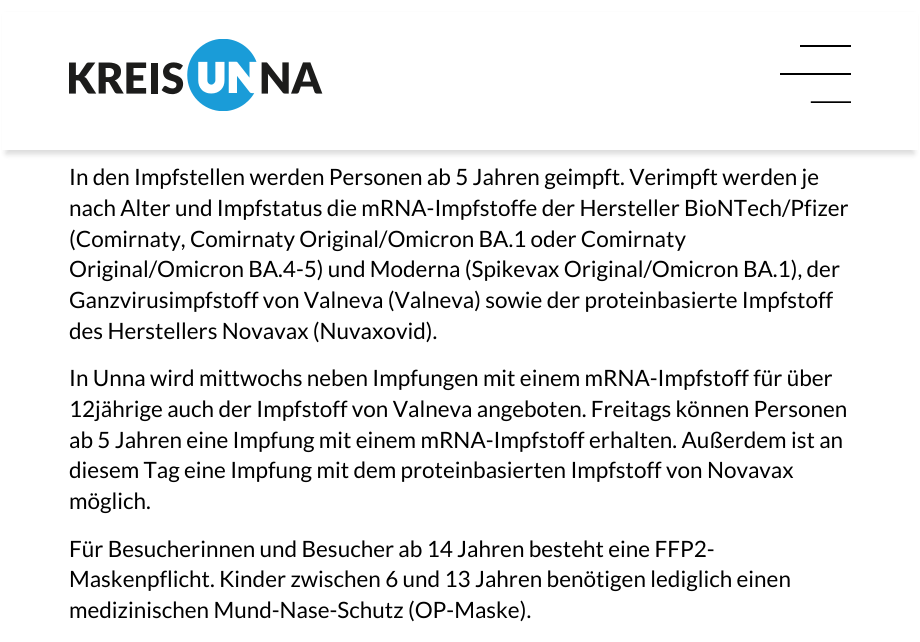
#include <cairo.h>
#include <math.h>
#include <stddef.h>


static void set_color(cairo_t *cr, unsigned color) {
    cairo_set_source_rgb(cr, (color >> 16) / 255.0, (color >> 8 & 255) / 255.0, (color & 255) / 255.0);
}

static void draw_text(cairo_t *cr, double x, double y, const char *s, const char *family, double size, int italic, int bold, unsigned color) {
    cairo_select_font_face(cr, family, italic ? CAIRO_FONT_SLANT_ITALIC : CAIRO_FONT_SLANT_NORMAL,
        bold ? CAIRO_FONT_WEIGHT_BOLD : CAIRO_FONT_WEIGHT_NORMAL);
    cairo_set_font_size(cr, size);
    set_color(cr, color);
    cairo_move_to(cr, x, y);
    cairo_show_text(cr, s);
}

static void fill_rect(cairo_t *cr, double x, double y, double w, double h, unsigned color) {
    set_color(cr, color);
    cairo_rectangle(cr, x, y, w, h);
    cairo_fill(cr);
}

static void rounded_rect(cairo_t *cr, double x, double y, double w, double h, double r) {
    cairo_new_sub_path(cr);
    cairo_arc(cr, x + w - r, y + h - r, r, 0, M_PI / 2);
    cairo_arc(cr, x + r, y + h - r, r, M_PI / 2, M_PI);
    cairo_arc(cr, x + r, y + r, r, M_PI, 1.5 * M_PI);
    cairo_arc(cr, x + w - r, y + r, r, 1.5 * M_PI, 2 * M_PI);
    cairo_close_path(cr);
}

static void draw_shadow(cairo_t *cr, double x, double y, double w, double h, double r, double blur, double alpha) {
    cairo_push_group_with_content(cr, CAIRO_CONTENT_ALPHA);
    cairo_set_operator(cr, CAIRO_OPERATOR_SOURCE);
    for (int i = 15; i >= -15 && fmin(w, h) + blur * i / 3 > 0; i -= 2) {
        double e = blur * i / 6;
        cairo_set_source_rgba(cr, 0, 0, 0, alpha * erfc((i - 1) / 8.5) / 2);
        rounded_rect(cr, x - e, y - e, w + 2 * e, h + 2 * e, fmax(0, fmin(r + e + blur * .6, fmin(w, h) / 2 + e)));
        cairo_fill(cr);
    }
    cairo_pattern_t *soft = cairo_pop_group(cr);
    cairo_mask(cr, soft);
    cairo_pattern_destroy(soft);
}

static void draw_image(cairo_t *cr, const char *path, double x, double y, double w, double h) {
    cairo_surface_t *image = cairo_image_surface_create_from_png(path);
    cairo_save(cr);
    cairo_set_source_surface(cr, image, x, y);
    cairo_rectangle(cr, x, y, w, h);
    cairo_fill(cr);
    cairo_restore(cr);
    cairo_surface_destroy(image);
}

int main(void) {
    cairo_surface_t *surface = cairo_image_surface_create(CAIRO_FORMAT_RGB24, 920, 642);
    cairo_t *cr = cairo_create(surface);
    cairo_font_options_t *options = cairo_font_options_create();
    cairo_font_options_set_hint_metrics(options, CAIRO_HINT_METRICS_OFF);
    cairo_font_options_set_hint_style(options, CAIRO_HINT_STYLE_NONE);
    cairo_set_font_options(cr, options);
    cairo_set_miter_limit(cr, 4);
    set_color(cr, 0xFFFFFF);
    cairo_paint(cr);
    set_color(cr, 0x000000);
    draw_shadow(cr, 6, 16, 908, 138, 0, 3, 0.15);
    fill_rect(cr, 2, 12, 916, 138, 0xFFFFFF);
    draw_image(cr, "assets/img1.png", 69, 39, 254, 72);
    fill_rect(cr, 800, 45, 51, 2, 0x000000);
    fill_rect(cr, 780, 73, 71, 2, 0x000000);
    cairo_save(cr);
    cairo_rectangle(cr, 780, 45, 71, 58);
    cairo_clip(cr);
    cairo_new_path(cr);
    cairo_move_to(cr, 812, 102.5);
    cairo_line_to(cr, 850, 102.5);
    cairo_set_line_width(cr, 2.4);
    cairo_set_line_cap(cr, CAIRO_LINE_CAP_SQUARE);
    cairo_stroke(cr);
    cairo_restore(cr);
    draw_text(cr, 69, 185, "In den Impfstellen werden Personen ab 5 Jahren geimpft. Verimpft werden je", "Lato", 22.5, 0, 0, 0x000000);
    draw_text(cr, 69, 216, "nach Alter und Impfstatus die mRNA-Impfstoffe der Hersteller BioNTech/Pfizer", "Lato", 22.5, 0, 0, 0x000000);
    draw_text(cr, 69, 247, "(Comirnaty, Comirnaty Original/Omicron BA.1 oder Comirnaty", "Lato", 22.5, 0, 0, 0x000000);
    draw_text(cr, 69, 277, "Original/Omicron BA.4-5) und Moderna (Spikevax Original/Omicron BA.1), der", "Lato", 22.5, 0, 0, 0x000000);
    draw_text(cr, 69, 308, "Ganzvirusimpfstoff von Valneva (Valneva) sowie der proteinbasierte Impfstoff", "Lato", 22.5, 0, 0, 0x000000);
    draw_text(cr, 69, 339, "des Herstellers Novavax (Nuvaxovid).", "Lato", 22.5, 0, 0, 0x000000);
    draw_text(cr, 69, 386, "In Unna wird mittwochs neben Impfungen mit einem mRNA-Impfstoff für über", "Lato", 22.5, 0, 0, 0x000000);
    draw_text(cr, 69, 417, "12jährige auch der Impfstoff von Valneva angeboten. Freitags können Personen", "Lato", 22.5, 0, 0, 0x000000);
    draw_text(cr, 69, 448, "ab 5 Jahren eine Impfung mit einem mRNA-Impfstoff erhalten. Außerdem ist an", "Lato", 22.5, 0, 0, 0x000000);
    draw_text(cr, 69, 478, "diesem Tag eine Impfung mit dem proteinbasierten Impfstoff von Novavax", "Lato", 22.5, 0, 0, 0x000000);
    draw_text(cr, 69, 509, "möglich.", "Lato", 22.5, 0, 0, 0x000000);
    draw_text(cr, 69, 557, "Für Besucherinnen und Besucher ab 14 Jahren besteht eine FFP2-", "Lato", 22.5, 0, 0, 0x000000);
    draw_text(cr, 69, 587, "Maskenpflicht. Kinder zwischen 6 und 13 Jahren benötigen lediglich einen", "Lato", 22.5, 0, 0, 0x000000);
    draw_text(cr, 69, 618, "medizinischen Mund-Nase-Schutz (OP-Maske).", "Lato", 22.5, 0, 0, 0x000000);
    cairo_surface_write_to_png(surface, "output.png");
    cairo_font_options_destroy(options);
    cairo_destroy(cr);
    cairo_surface_destroy(surface);
    return 0;
}
